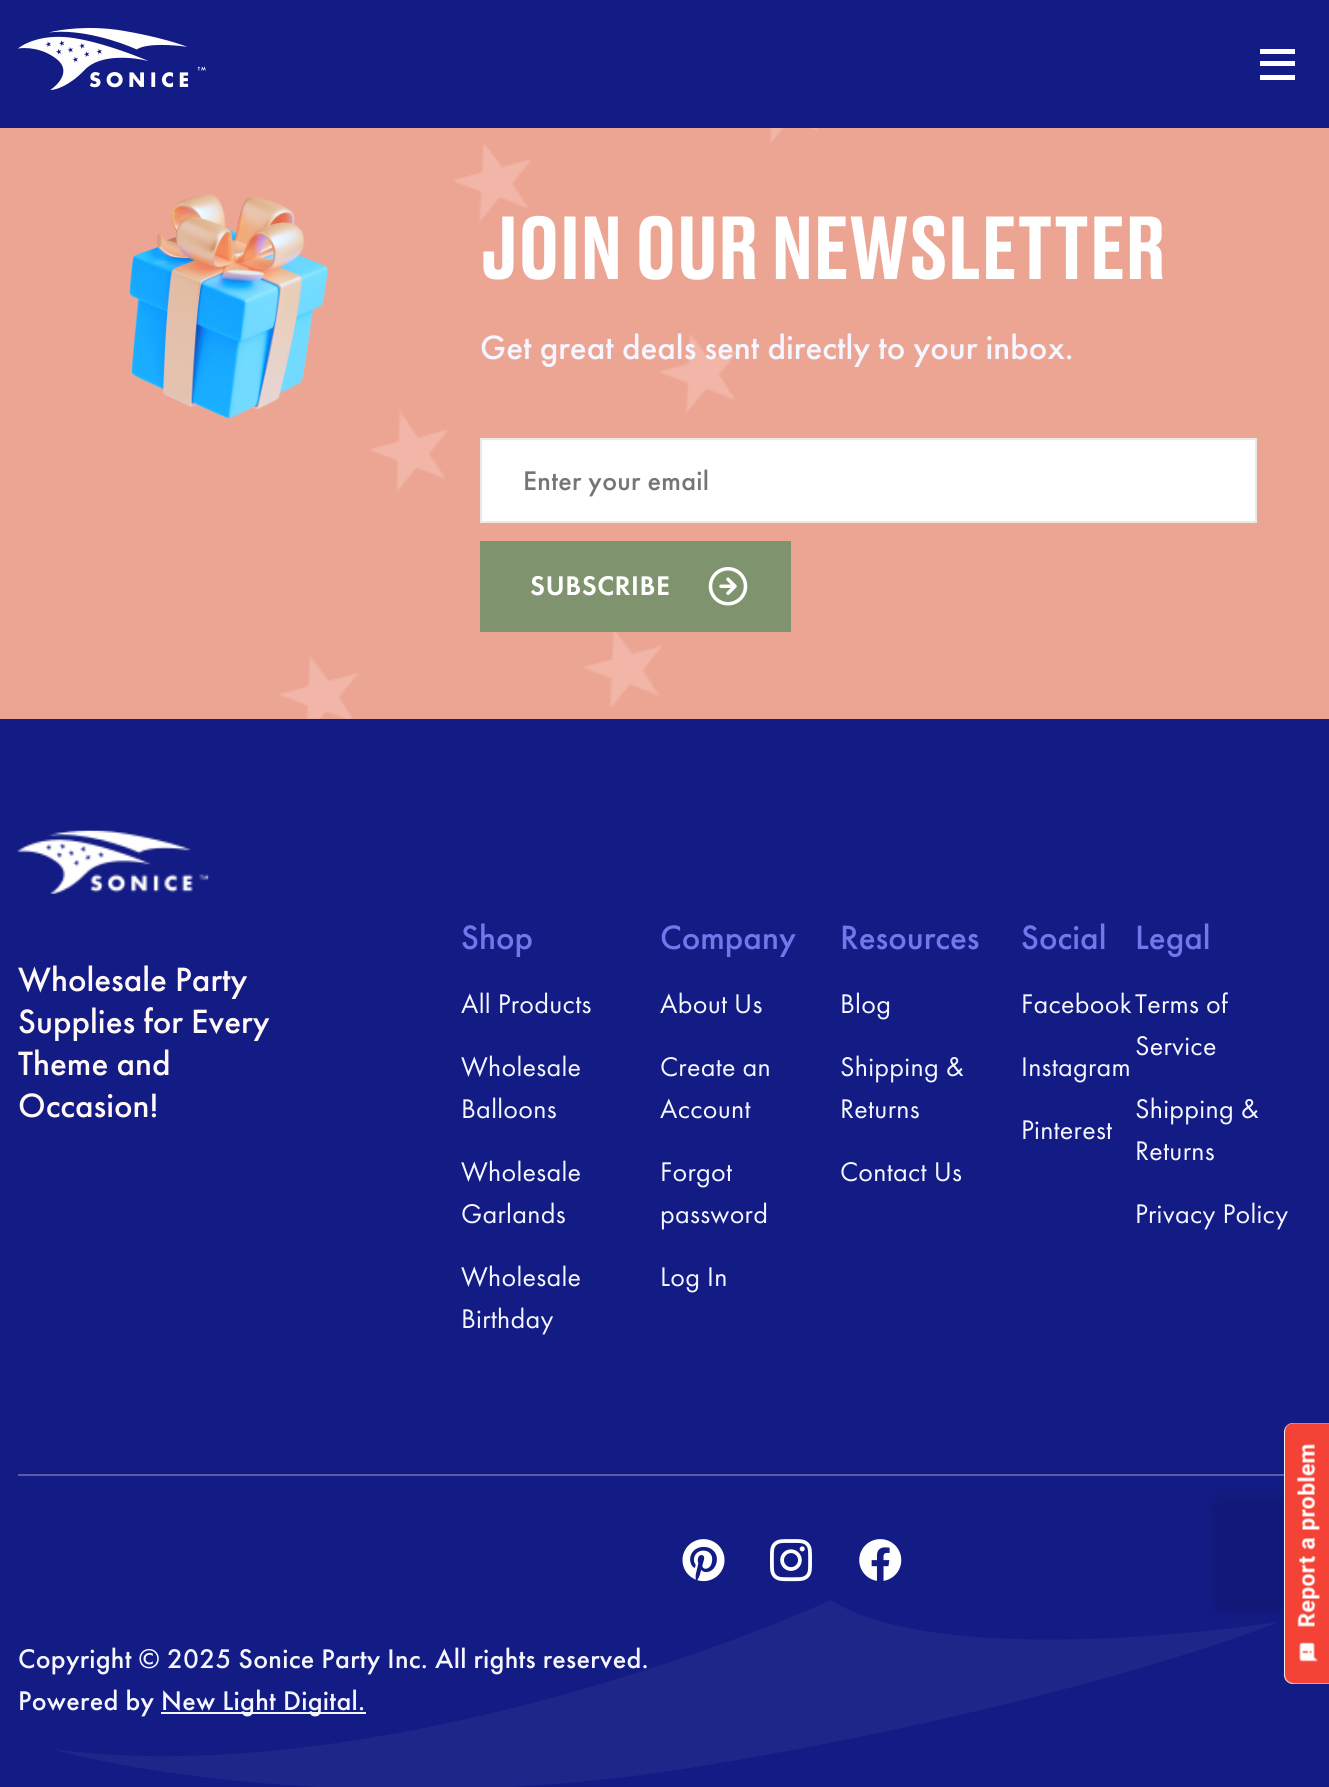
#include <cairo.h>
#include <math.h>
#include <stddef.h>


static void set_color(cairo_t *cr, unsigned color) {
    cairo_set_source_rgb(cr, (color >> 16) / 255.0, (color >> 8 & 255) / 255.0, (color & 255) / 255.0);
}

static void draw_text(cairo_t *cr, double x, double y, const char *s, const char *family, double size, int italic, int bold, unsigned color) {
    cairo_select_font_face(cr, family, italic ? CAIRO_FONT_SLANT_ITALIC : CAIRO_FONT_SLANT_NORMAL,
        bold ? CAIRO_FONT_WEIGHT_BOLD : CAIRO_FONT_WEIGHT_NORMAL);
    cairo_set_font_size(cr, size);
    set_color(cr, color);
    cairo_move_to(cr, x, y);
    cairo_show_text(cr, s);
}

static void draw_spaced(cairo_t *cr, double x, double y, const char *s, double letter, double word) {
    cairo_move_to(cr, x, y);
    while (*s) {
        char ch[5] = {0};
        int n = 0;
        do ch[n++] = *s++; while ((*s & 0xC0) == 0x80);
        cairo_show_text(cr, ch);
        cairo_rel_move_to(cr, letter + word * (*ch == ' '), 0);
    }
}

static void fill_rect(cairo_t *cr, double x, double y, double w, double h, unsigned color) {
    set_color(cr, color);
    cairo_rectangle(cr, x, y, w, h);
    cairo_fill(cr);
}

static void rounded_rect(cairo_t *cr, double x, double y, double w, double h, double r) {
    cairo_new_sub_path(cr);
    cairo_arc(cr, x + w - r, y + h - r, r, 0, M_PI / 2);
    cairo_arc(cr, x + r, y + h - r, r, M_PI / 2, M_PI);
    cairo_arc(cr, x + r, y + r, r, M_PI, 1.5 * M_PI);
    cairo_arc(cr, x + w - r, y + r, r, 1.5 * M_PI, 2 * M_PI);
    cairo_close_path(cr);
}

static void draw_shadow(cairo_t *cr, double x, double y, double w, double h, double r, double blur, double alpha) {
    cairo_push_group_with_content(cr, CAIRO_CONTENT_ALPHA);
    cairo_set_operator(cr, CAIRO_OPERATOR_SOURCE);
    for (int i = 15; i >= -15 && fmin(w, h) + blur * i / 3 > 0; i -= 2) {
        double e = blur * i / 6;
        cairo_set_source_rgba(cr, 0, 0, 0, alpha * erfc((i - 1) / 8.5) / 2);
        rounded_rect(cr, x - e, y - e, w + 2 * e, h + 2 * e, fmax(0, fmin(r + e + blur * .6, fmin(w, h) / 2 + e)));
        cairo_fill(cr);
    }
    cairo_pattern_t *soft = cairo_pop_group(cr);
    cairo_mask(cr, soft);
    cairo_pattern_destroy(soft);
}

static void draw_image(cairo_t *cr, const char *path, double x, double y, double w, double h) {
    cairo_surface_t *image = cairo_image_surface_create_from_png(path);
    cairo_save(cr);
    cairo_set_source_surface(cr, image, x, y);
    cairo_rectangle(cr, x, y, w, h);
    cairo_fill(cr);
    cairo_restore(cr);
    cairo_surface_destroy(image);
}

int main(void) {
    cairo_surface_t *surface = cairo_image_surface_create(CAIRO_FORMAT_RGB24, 1329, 1787);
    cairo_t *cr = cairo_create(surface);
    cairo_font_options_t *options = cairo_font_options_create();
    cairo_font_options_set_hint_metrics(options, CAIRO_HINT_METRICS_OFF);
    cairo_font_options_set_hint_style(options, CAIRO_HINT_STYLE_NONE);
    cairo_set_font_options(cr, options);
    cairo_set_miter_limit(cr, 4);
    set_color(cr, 0xEDA593);
    cairo_paint(cr);
    fill_rect(cr, 0, 0, 1329, 128, 0x131B84);
    draw_image(cr, "assets/img1.png", 18, 28, 188, 62);
    fill_rect(cr, 1260, 49, 35, 5, 0xFFFFFF);
    fill_rect(cr, 1260, 75, 35, 5, 0xFFFFFF);
    fill_rect(cr, 1260, 61, 35, 5, 0xFFFFFF);
    draw_image(cr, "assets/img2.png", 280, 128, 539, 591);
    draw_image(cr, "assets/img3.png", 129, 194, 199, 225);
    draw_text(cr, 480, 279, "JOIN OUR NEWSLETTER", "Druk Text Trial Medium", 84, 0, 0, 0xFFFFFF);
    draw_text(cr, 480, 359, "Get great deals sent directly to your inbox.", "Futura PT Medium", 35, 0, 0, 0xF5F6FF);
    set_color(cr, 0xFFFFFF);
    cairo_rectangle(cr, 481, 439, 775, 83);
    cairo_fill_preserve(cr);
    set_color(cr, 0xE7EBE4);
    cairo_stroke(cr);
    cairo_set_font_size(cr, 28);
    set_color(cr, 0x757575);
    draw_spaced(cr, 523, 490, "Enter your email", 0.28, 0);
    fill_rect(cr, 480, 541, 311, 91, 0x7F936E);
    draw_image(cr, "assets/img4.png", 708, 567, 40, 39);
    cairo_select_font_face(cr, "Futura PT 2 Medium", CAIRO_FONT_SLANT_NORMAL, CAIRO_FONT_WEIGHT_NORMAL);
    set_color(cr, 0xFFFFFF);
    draw_spaced(cr, 530, 595, "SUBSCRIBE", 0.5, 0);
    fill_rect(cr, 0, 719, 1329, 1068, 0x131B84);
    set_color(cr, 0x1E268A);
    cairo_new_path(cr);
    cairo_move_to(cr, 708, 1765);
    cairo_curve_to(cr, 410, 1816, 147, 1776, 52, 1749);
    cairo_curve_to(cr, 330, 1787, 687, 1665, 831, 1600);
    cairo_curve_to(cr, 921, 1659, 1166, 1639, 1278, 1622);
    cairo_curve_to(cr, 1212, 1649, 1007, 1715, 708, 1765);
    cairo_close_path(cr);
    cairo_fill(cr);
    draw_image(cr, "assets/img5.png", 17, 830, 192, 64);
    draw_text(cr, 18, 991, "Wholesale Party", "Futura PT Medium", 35, 0, 0, 0xFFF8F6);
    draw_text(cr, 18, 1033, "Supplies for Every", "Futura PT Medium", 35, 0, 0, 0xFFF8F6);
    draw_text(cr, 18, 1075, "Theme and", "Futura PT Medium", 35, 0, 0, 0xFFF8F6);
    draw_text(cr, 18, 1117, "Occasion!", "Futura PT Medium", 35, 0, 0, 0xFFF8F6);
    draw_text(cr, 461, 949, "Shop", "Futura PT Medium", 35, 0, 0, 0x7078EB);
    cairo_select_font_face(cr, "Futura PT", CAIRO_FONT_SLANT_NORMAL, CAIRO_FONT_WEIGHT_NORMAL);
    cairo_set_font_size(cr, 28);
    set_color(cr, 0xF5F6FF);
    draw_spaced(cr, 461, 1013, "All Products", 0.28, 0);
    draw_spaced(cr, 461, 1076, "Wholesale", 0.28, 0);
    draw_spaced(cr, 461, 1118, "Balloons", 0.28, 0);
    draw_spaced(cr, 461, 1181, "Wholesale", 0.28, 0);
    draw_spaced(cr, 461, 1223, "Garlands", 0.28, 0);
    draw_spaced(cr, 461, 1286, "Wholesale", 0.28, 0);
    draw_spaced(cr, 461, 1328, "Birthday", 0.28, 0);
    draw_text(cr, 660, 949, "Company", "Futura PT Medium", 35, 0, 0, 0x7078EB);
    cairo_select_font_face(cr, "Futura PT", CAIRO_FONT_SLANT_NORMAL, CAIRO_FONT_WEIGHT_NORMAL);
    cairo_set_font_size(cr, 28);
    set_color(cr, 0xF5F6FF);
    draw_spaced(cr, 660, 1013, "About Us", 0.28, 0);
    draw_spaced(cr, 660, 1076, "Create an", 0.28, 0);
    draw_spaced(cr, 660, 1118, "Account", 0.28, 0);
    draw_spaced(cr, 660, 1181, "Forgot", 0.28, 0);
    draw_spaced(cr, 660, 1223, "password", 0.28, 0);
    draw_spaced(cr, 660, 1286, "Log In", 0.28, 0);
    draw_text(cr, 840, 949, "Resources", "Futura PT Medium", 35, 0, 0, 0x7078EB);
    cairo_select_font_face(cr, "Futura PT", CAIRO_FONT_SLANT_NORMAL, CAIRO_FONT_WEIGHT_NORMAL);
    cairo_set_font_size(cr, 28);
    set_color(cr, 0xF5F6FF);
    draw_spaced(cr, 840, 1013, "Blog", 0.28, 0);
    draw_spaced(cr, 840, 1076, "Shipping &", 0.28, 0);
    draw_spaced(cr, 840, 1118, "Returns", 0.28, 0);
    draw_spaced(cr, 840, 1181, "Contact Us", 0.28, 0);
    draw_text(cr, 1021, 949, "Social", "Futura PT Medium", 35, 0, 0, 0x7078EB);
    cairo_select_font_face(cr, "Futura PT", CAIRO_FONT_SLANT_NORMAL, CAIRO_FONT_WEIGHT_NORMAL);
    cairo_set_font_size(cr, 28);
    set_color(cr, 0xF5F6FF);
    draw_spaced(cr, 1021, 1013, "Facebook", 0.28, 0);
    draw_spaced(cr, 1021, 1076, "Instagram", 0.28, 0);
    draw_spaced(cr, 1021, 1139, "Pinterest", 0.28, 0);
    draw_text(cr, 1135, 949, "Legal", "Futura PT Medium", 35, 0, 0, 0x7078EB);
    cairo_select_font_face(cr, "Futura PT", CAIRO_FONT_SLANT_NORMAL, CAIRO_FONT_WEIGHT_NORMAL);
    cairo_set_font_size(cr, 28);
    set_color(cr, 0xF5F6FF);
    draw_spaced(cr, 1135, 1013, "Terms of", 0.28, 0);
    draw_spaced(cr, 1135, 1055, "Service", 0.28, 0);
    draw_spaced(cr, 1135, 1118, "Shipping &", 0.28, 0);
    draw_spaced(cr, 1135, 1160, "Returns", 0.28, 0);
    draw_spaced(cr, 1135, 1223, "Privacy Policy", 0.28, 0);
    fill_rect(cr, 18, 1474, 1266, 2, 0x5A5DA6);
    draw_image(cr, "assets/img6.png", 682, 1539, 43, 43);
    draw_image(cr, "assets/img7.png", 770, 1539, 42, 43);
    draw_image(cr, "assets/img8.png", 859, 1539, 43, 42);
    cairo_select_font_face(cr, "Futura PT Medium", CAIRO_FONT_SLANT_NORMAL, CAIRO_FONT_WEIGHT_NORMAL);
    set_color(cr, 0xF5F6FF);
    draw_spaced(cr, 18, 1668, "Copyright © 2025 Sonice Party Inc. All rights reserved.", 0.28, 0);
    draw_spaced(cr, 18, 1710, "Powered by", 0.28, 0);
    fill_rect(cr, 161, 1712, 205, 2, 0xF5F6FF);
    draw_spaced(cr, 161, 1710, "New Light Digital.", 0.28, 0);
    set_color(cr, 0x000000);
    draw_shadow(cr, 1213, 1496, 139, 116, 9, 4.5, 0.1);
    set_color(cr, 0xEFEFEF);
    cairo_new_path(cr);
    cairo_move_to(cr, 1284, 1675);
    cairo_line_to(cr, 1284, 1432);
    cairo_curve_to(cr, 1284, 1427, 1288, 1423, 1293, 1423);
    cairo_line_to(cr, 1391, 1423);
    cairo_curve_to(cr, 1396, 1423, 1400, 1427, 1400, 1432);
    cairo_line_to(cr, 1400, 1675);
    cairo_curve_to(cr, 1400, 1680, 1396, 1684, 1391, 1684);
    cairo_line_to(cr, 1293, 1684);
    cairo_curve_to(cr, 1288, 1684, 1284, 1680, 1284, 1675);
    cairo_close_path(cr);
    cairo_fill(cr);
    draw_image(cr, "assets/img9.png", 1285, 1423, 44, 261);
    cairo_surface_write_to_png(surface, "output.png");
    cairo_font_options_destroy(options);
    cairo_destroy(cr);
    cairo_surface_destroy(surface);
    return 0;
}
